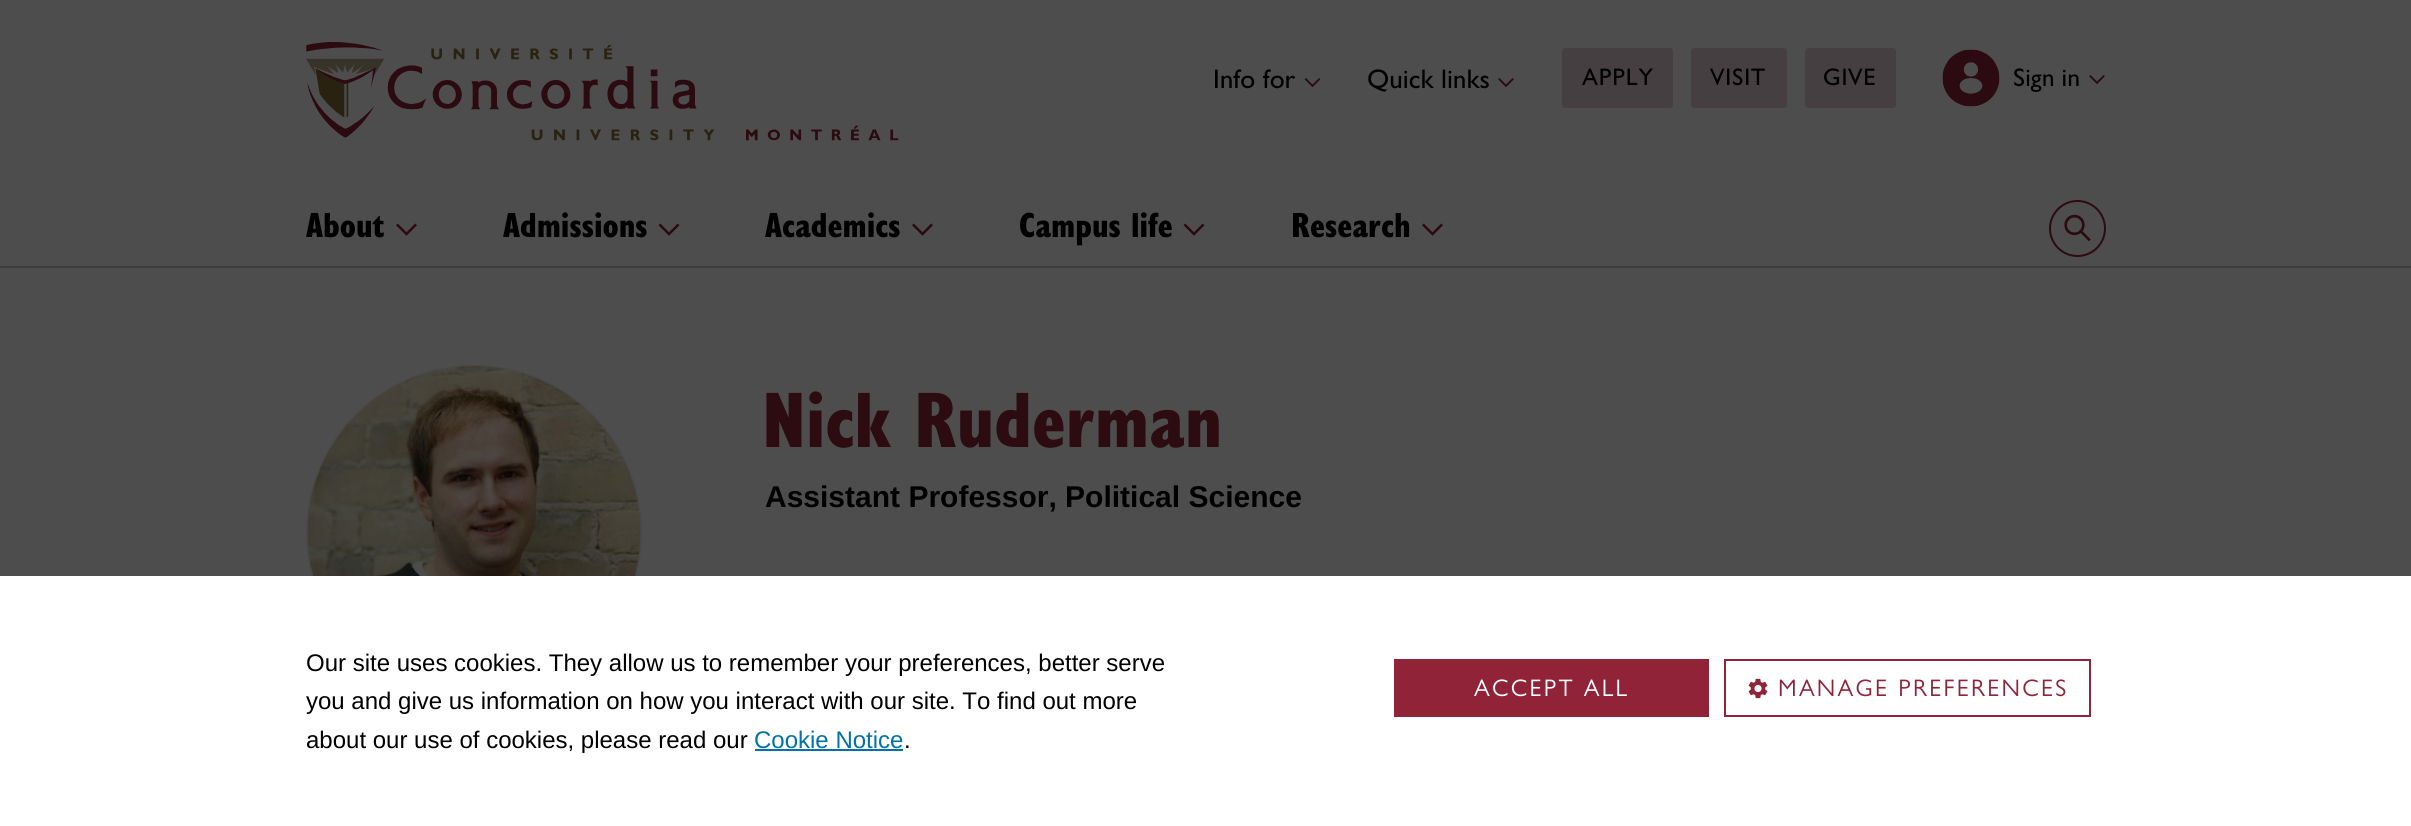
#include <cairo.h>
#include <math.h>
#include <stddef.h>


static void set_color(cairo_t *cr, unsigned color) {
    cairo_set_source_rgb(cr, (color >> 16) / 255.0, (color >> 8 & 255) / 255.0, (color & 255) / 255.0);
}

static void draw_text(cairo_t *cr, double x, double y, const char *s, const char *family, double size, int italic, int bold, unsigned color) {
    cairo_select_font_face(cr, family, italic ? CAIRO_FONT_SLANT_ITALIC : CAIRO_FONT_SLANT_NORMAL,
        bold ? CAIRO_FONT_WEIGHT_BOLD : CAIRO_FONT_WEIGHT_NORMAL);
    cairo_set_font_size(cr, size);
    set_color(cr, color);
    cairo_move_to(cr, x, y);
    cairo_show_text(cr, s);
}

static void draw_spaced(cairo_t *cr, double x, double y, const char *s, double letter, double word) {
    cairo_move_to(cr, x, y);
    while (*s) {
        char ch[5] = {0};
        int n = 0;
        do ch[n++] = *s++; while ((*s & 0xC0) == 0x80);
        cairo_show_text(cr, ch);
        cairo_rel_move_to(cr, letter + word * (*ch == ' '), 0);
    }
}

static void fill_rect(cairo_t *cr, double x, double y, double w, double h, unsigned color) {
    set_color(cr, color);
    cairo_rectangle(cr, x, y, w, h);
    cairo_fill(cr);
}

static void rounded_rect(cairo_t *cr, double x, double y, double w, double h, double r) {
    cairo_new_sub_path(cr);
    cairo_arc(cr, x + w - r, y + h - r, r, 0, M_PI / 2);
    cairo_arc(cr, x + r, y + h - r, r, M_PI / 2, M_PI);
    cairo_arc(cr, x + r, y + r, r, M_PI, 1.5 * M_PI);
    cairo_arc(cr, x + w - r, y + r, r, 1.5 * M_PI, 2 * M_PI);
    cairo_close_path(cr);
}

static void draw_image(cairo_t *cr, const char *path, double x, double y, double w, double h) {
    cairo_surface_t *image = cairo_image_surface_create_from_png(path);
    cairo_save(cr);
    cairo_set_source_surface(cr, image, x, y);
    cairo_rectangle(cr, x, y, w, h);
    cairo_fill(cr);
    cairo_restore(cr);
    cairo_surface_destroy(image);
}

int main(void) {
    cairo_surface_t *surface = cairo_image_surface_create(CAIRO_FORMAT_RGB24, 2411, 826);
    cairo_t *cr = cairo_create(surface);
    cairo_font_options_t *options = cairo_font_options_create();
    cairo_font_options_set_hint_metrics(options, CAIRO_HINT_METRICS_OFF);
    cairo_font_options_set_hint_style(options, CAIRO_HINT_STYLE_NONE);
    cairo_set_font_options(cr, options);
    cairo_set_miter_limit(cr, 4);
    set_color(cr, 0x4D4D4D);
    cairo_paint(cr);
    draw_image(cr, "assets/img1.png", 306, 42, 593, 99);
    draw_text(cr, 1213, 88, "Info for", "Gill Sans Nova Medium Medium", 27, 0, 0, 0x000000);
    draw_image(cr, "assets/img2.png", 1304, 78, 17, 10);
    draw_text(cr, 1367, 88, "Quick links", "Gill Sans Nova Medium Medium", 27, 0, 0, 0x000000);
    draw_image(cr, "assets/img3.png", 1498, 78, 16, 9);
    set_color(cr, 0x463F41);
    rounded_rect(cr, 1562, 48, 111, 60, 3);
    cairo_fill(cr);
    cairo_set_font_size(cr, 24);
    set_color(cr, 0x000000);
    draw_spaced(cr, 1582, 85, "APPLY", 0.75, 0);
    set_color(cr, 0x463F41);
    rounded_rect(cr, 1691, 48, 96, 60, 3);
    cairo_fill(cr);
    set_color(cr, 0x000000);
    draw_spaced(cr, 1710, 85, "VISIT", 0.75, 0);
    set_color(cr, 0x463F41);
    rounded_rect(cr, 1805, 48, 91, 60, 3);
    cairo_fill(cr);
    set_color(cr, 0x000000);
    draw_spaced(cr, 1823, 85, "GIVE", 0.75, 0);
    draw_image(cr, "assets/img4.png", 1942, 49, 58, 58);
    draw_text(cr, 2013, 86, "Sign in", "Gill Sans Nova Medium Medium", 25.5, 0, 0, 0x000000);
    draw_image(cr, "assets/img3.png", 2089, 75, 16, 9);
    fill_rect(cr, 0, 266, 2411, 2, 0x3C3C3C);
    draw_text(cr, 306, 237, "About", "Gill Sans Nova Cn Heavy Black", 36, 0, 0, 0x000000);
    draw_image(cr, "assets/img5.png", 396, 223, 21, 13);
    draw_text(cr, 503, 237, "Admissions", "Gill Sans Nova Cn Heavy Black", 36, 0, 0, 0x000000);
    draw_image(cr, "assets/img6.png", 658, 223, 22, 13);
    draw_text(cr, 765, 237, "Academics", "Gill Sans Nova Cn Heavy Black", 36, 0, 0, 0x000000);
    draw_image(cr, "assets/img5.png", 912, 223, 21, 13);
    draw_text(cr, 1019, 237, "Campus life", "Gill Sans Nova Cn Heavy Black", 36, 0, 0, 0x000000);
    draw_image(cr, "assets/img6.png", 1183, 223, 22, 13);
    draw_text(cr, 1291, 237, "Research", "Gill Sans Nova Cn Heavy Black", 36, 0, 0, 0x000000);
    draw_image(cr, "assets/img5.png", 1422, 223, 21, 13);
    cairo_arc(cr, 2077.5, 228.5, 27.5, 0, 2 * M_PI);
    set_color(cr, 0x2C0B11);
    cairo_stroke(cr);
    draw_image(cr, "assets/img7.png", 2064, 214, 27, 28);
    cairo_arc(cr, 474, 533, 167, 0, 2 * M_PI);
    set_color(cr, 0x484848);
    cairo_stroke(cr);
    draw_image(cr, "assets/img8.png", 307, 366, 334, 210);
    draw_text(cr, 762, 447, "Nick Ruderman", "Gill Sans Nova Cn Heavy Black", 81, 0, 0, 0x2C0B11);
    draw_text(cr, 765, 507, "Assistant Professor, Political Science", "Liberation Sans", 30, 0, 1, 0x000000);
    fill_rect(cr, 0, 576, 2411, 250, 0xFFFFFF);
    draw_text(cr, 306, 671, "Our site uses cookies. They allow us to remember your preferences, better serve", "Liberation Sans", 24, 0, 0, 0x000000);
    draw_text(cr, 306, 709, "you and give us information on how you interact with our site. To find out more", "Liberation Sans", 24, 0, 0, 0x000000);
    draw_text(cr, 306, 748, "about our use of cookies, please read our", "Liberation Sans", 24, 0, 0, 0x000000);
    draw_text(cr, 754, 748, "Cookie Notice", "Liberation Sans", 24, 0, 0, 0x0072A8);
    fill_rect(cr, 755, 749, 148, 2, 0x0072A8);
    draw_text(cr, 904, 748, ".", "Liberation Sans", 24, 0, 0, 0x000000);
    fill_rect(cr, 1394, 659, 315, 58, 0x912338);
    cairo_select_font_face(cr, "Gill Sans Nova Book", CAIRO_FONT_SLANT_NORMAL, CAIRO_FONT_WEIGHT_NORMAL);
    set_color(cr, 0xFFFFFF);
    draw_spaced(cr, 1474, 696, "ACCEPT ALL", 2.25, 0);
    cairo_rectangle(cr, 1725, 660, 365, 56);
    set_color(cr, 0x912338);
    cairo_stroke(cr);
    draw_image(cr, "assets/img9.png", 1748, 678, 20, 21);
    draw_spaced(cr, 1778, 696, "MANAGE PREFERENCES", 2.25, 0);
    cairo_surface_write_to_png(surface, "output.png");
    cairo_font_options_destroy(options);
    cairo_destroy(cr);
    cairo_surface_destroy(surface);
    return 0;
}
